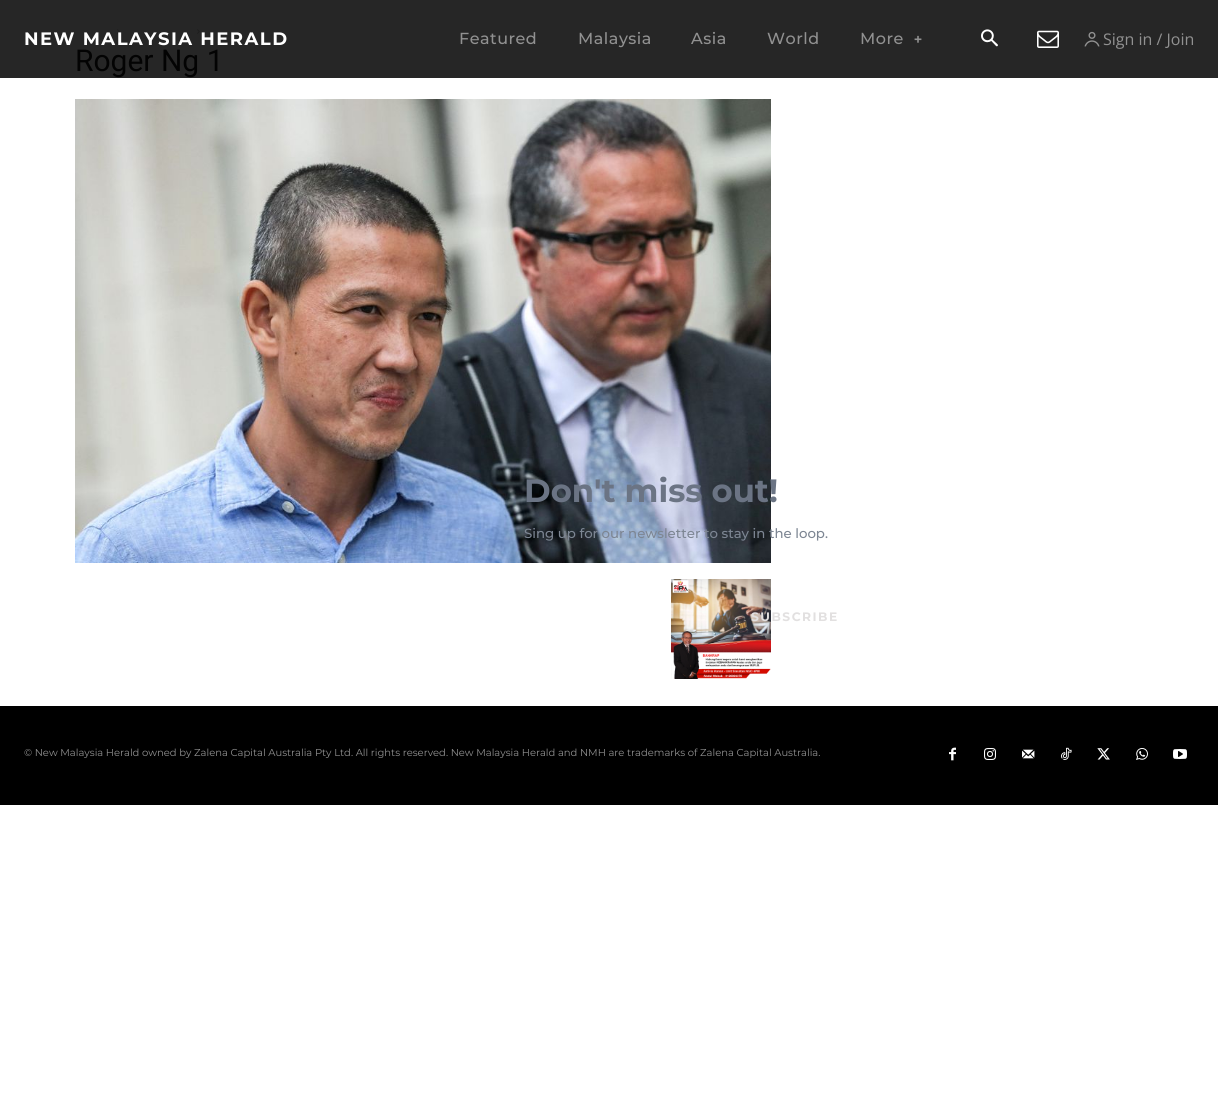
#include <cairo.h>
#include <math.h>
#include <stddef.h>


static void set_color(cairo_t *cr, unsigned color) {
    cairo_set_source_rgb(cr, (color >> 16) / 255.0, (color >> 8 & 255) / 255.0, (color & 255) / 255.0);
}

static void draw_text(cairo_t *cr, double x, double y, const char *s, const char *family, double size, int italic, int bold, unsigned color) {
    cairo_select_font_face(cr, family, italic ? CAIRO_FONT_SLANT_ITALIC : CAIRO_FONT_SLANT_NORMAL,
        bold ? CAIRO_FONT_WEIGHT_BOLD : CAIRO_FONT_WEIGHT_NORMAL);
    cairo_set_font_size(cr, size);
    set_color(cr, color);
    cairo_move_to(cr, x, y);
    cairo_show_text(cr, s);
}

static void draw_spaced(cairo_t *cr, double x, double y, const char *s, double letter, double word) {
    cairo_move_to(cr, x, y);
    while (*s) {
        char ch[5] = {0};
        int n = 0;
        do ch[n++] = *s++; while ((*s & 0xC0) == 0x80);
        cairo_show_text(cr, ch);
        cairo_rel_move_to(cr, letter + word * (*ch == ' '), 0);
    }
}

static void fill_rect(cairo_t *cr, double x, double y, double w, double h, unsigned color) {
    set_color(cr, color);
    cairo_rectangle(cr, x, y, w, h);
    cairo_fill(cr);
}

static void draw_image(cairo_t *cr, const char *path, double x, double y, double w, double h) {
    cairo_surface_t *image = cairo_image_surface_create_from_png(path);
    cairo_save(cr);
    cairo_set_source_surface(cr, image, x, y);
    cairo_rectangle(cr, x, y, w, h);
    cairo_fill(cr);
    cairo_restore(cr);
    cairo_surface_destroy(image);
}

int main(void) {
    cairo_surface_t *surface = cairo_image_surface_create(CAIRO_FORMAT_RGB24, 1218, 1105);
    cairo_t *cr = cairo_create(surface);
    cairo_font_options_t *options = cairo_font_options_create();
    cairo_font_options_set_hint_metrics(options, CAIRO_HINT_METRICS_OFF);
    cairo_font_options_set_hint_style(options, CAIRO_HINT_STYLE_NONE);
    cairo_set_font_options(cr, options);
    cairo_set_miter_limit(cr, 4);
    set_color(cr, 0xFFFFFF);
    cairo_paint(cr);
    fill_rect(cr, 0, 0, 1218, 78, 0x262626);
    draw_image(cr, "assets/img5.png", 117, 29, 3, 5);
    draw_image(cr, "assets/img5.png", 197, 29, 3, 5);
    cairo_select_font_face(cr, "Montserrat", CAIRO_FONT_SLANT_NORMAL, CAIRO_FONT_WEIGHT_BOLD);
    cairo_set_font_size(cr, 18);
    set_color(cr, 0xFFFFFF);
    draw_spaced(cr, 24, 45, "NEW MALAYSIA HERALD", 1.5, 0);
    cairo_select_font_face(cr, "Montserrat Medium", CAIRO_FONT_SLANT_NORMAL, CAIRO_FONT_WEIGHT_NORMAL);
    cairo_set_font_size(cr, 16);
    set_color(cr, 0x919191);
    draw_spaced(cr, 459, 44, "Featured", 0.5, 0);
    draw_spaced(cr, 578, 44, "Malaysia", 0.5, 0);
    draw_spaced(cr, 691, 44, "Asia", 0.5, 0);
    draw_spaced(cr, 767, 44, "World", 0.5, 0);
    draw_spaced(cr, 860, 44, "More", 0.5, 0);
    draw_image(cr, "assets/img1.png", 914, 35, 8, 8);
    draw_image(cr, "assets/img2.png", 981, 29, 17, 18);
    draw_image(cr, "assets/img3.png", 1037, 30, 22, 18);
    draw_image(cr, "assets/img4.png", 1084, 31, 16, 16);
    draw_text(cr, 1103, 45, "Sign in / Join", "Open Sans", 16, 0, 0, 0x919191);
    draw_text(cr, 75, 71, "Roger Ng 1", "Roboto", 30, 0, 0, 0x030303);
    draw_image(cr, "assets/img6.png", 75, 99, 696, 464);
    draw_image(cr, "assets/img7.png", 671, 579, 100, 100);
    fill_rect(cr, 0, 706, 1218, 99, 0x000000);
    draw_text(cr, 24, 756, "© New Malaysia Herald owned by Zalena Capital Australia Pty Ltd. All rights reserved. New Malaysia Herald and NMH are trademarks of Zalena Capital Australia.", "Montserrat", 10, 0, 0, 0x919191);
    draw_image(cr, "assets/img8.png", 949, 747, 7, 14);
    draw_image(cr, "assets/img9.png", 984, 748, 12, 12);
    draw_image(cr, "assets/img10.png", 1022, 749, 13, 10);
    draw_image(cr, "assets/img11.png", 1061, 747, 11, 13);
    draw_image(cr, "assets/img12.png", 1097, 748, 13, 12);
    draw_image(cr, "assets/img13.png", 1136, 748, 12, 12);
    draw_image(cr, "assets/img14.png", 1173, 749, 14, 10);
    draw_text(cr, 524, 502, "Don't miss out!", "Montserrat", 32.25, 0, 1, 0x6B7484);
    draw_text(cr, 524, 538, "Sing up for our newsletter to stay in the loop.", "Montserrat Medium", 13.3, 0, 0, 0x7D8693);
    cairo_select_font_face(cr, "Montserrat", CAIRO_FONT_SLANT_NORMAL, CAIRO_FONT_WEIGHT_BOLD);
    cairo_set_font_size(cr, 12.25);
    set_color(cr, 0xE2E0E0);
    draw_spaced(cr, 751, 621, "SUBSCRIBE", 1.5, 0);
    cairo_surface_write_to_png(surface, "output.png");
    cairo_font_options_destroy(options);
    cairo_destroy(cr);
    cairo_surface_destroy(surface);
    return 0;
}
